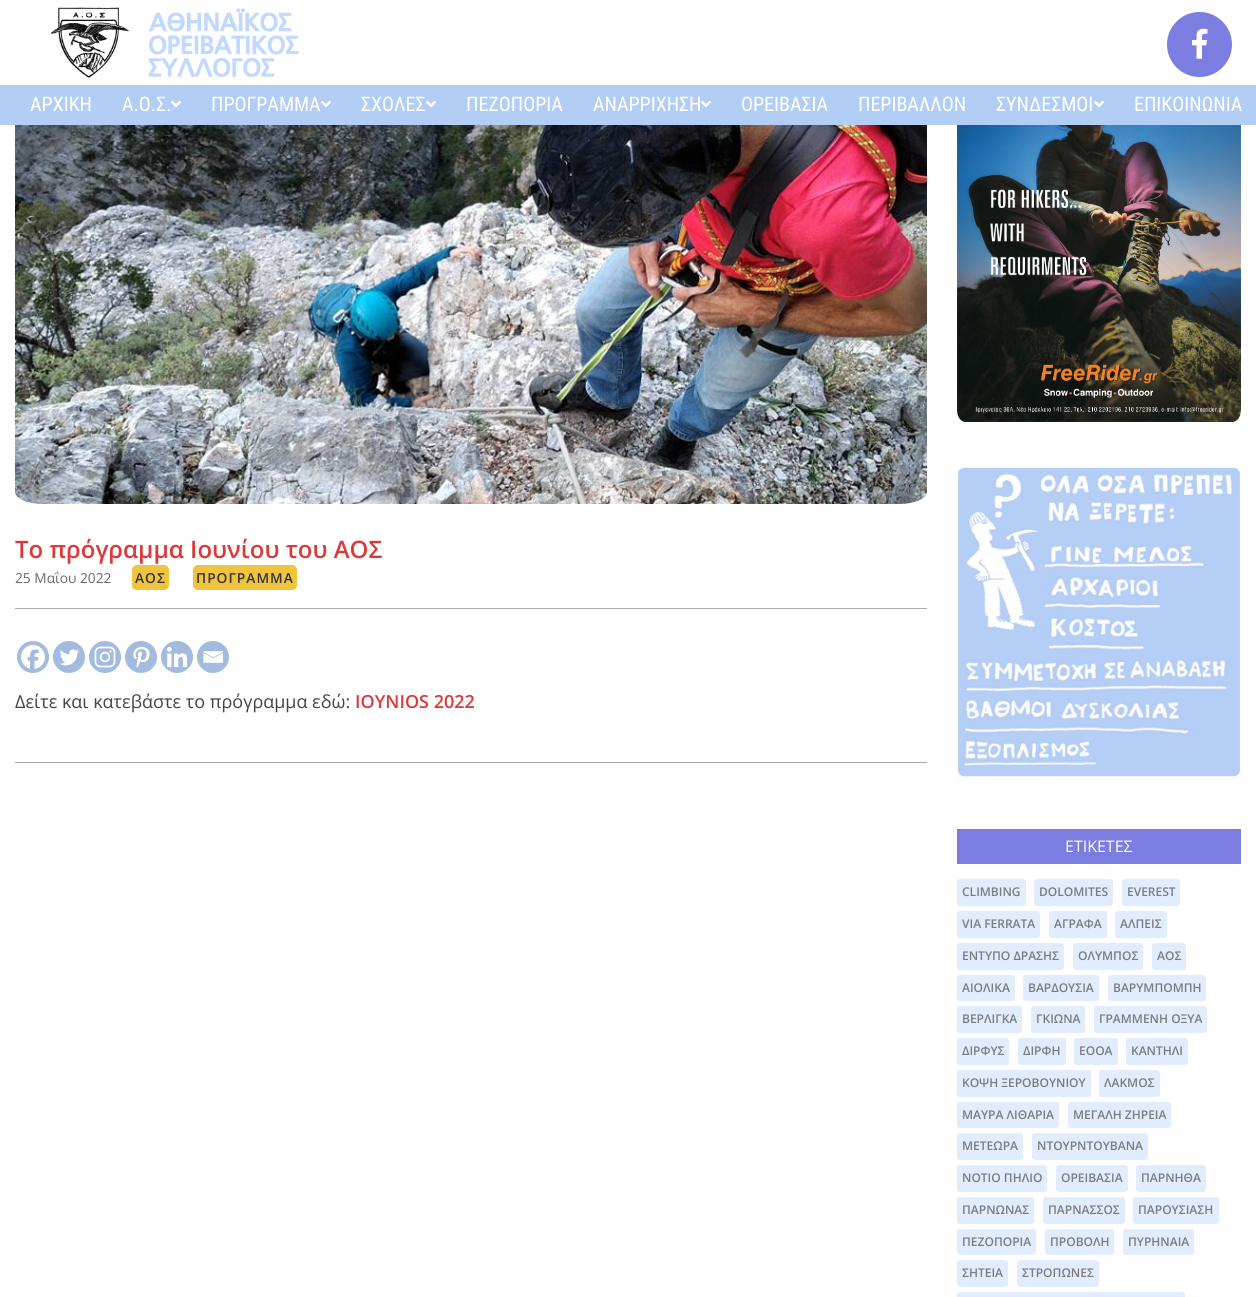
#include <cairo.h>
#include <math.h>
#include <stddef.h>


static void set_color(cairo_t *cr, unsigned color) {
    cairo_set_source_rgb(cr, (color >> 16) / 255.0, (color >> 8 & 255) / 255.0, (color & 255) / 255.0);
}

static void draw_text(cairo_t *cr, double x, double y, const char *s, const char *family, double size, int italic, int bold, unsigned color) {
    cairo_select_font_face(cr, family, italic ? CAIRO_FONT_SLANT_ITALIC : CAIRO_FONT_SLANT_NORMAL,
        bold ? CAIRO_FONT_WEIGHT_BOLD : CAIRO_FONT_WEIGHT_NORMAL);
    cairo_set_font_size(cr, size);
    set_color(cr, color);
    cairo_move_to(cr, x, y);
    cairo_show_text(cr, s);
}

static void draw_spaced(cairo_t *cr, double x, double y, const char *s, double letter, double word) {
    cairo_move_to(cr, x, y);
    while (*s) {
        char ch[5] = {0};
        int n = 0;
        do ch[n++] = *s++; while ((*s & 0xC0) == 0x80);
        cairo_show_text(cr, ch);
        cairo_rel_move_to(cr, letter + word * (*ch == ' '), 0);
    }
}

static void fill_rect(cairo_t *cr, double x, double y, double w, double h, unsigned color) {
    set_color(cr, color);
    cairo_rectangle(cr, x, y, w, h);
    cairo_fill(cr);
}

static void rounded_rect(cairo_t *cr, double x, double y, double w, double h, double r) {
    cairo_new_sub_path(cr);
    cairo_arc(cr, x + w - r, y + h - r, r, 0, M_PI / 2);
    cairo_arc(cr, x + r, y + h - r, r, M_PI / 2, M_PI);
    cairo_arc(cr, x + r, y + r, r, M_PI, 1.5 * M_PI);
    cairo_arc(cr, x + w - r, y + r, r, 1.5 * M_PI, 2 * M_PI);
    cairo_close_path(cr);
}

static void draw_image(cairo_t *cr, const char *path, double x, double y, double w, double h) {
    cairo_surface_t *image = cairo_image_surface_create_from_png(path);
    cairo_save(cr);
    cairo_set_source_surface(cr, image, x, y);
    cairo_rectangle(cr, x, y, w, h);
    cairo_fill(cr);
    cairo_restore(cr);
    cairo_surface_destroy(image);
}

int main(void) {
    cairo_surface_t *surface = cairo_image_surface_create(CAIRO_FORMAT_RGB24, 1256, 1297);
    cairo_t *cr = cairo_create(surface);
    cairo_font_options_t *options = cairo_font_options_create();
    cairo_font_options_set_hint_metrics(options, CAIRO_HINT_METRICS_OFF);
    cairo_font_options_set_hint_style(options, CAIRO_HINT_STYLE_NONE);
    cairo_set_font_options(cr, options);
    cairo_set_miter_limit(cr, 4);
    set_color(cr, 0xFFFFFF);
    cairo_paint(cr);
    draw_image(cr, "assets/img1.png", 50, 7, 249, 71);
    set_color(cr, 0x7B7EE0);
    cairo_arc(cr, 1199.5, 44.5, 32.5, 0, 2 * M_PI);
    cairo_fill(cr);
    draw_image(cr, "assets/img2.png", 1192, 28, 16, 31);
    fill_rect(cr, 0, 85, 1256, 40, 0xB3CEF4);
    draw_text(cr, 30, 111, "ΑΡΧΙΚΗ", "Roboto Condensed", 20, 0, 0, 0xFFFFFF);
    draw_text(cr, 122, 111, "Α.Ο.Σ.", "Roboto Condensed", 20, 0, 0, 0xFFFFFF);
    draw_image(cr, "assets/img3.png", 171, 100, 10, 8);
    draw_text(cr, 211, 111, "ΠΡΟΓΡΑΜΜΑ", "Roboto Condensed", 20, 0, 0, 0xFFFFFF);
    draw_image(cr, "assets/img3.png", 321, 100, 10, 8);
    draw_text(cr, 361, 111, "ΣΧΟΛΕΣ", "Roboto Condensed", 20, 0, 0, 0xFFFFFF);
    draw_image(cr, "assets/img3.png", 426, 100, 10, 8);
    draw_text(cr, 466, 111, "ΠΕΖΟΠΟΡΙΑ", "Roboto Condensed", 20, 0, 0, 0xFFFFFF);
    draw_text(cr, 593, 111, "ΑΝΑΡΡΙΧΗΣΗ", "Roboto Condensed", 20, 0, 0, 0xFFFFFF);
    draw_image(cr, "assets/img3.png", 701, 100, 10, 8);
    draw_text(cr, 741, 111, "ΟΡΕΙΒΑΣΙΑ", "Roboto Condensed", 20, 0, 0, 0xFFFFFF);
    draw_text(cr, 858, 111, "ΠΕΡΙΒΑΛΛΟΝ", "Roboto Condensed", 20, 0, 0, 0xFFFFFF);
    draw_text(cr, 996, 111, "ΣΥΝΔΕΣΜΟΙ", "Roboto Condensed", 20, 0, 0, 0xFFFFFF);
    draw_image(cr, "assets/img3.png", 1094, 100, 10, 8);
    draw_text(cr, 1134, 111, "ΕΠΙΚΟΙΝΩΝΙΑ", "Roboto Condensed", 20, 0, 0, 0xFFFFFF);
    draw_image(cr, "assets/img4.png", 15, 125, 912, 379);
    fill_rect(cr, 15, 608, 912, 1, 0xABABAB);
    draw_text(cr, 15, 558, "Το πρόγραμμα Ιουνίου του ΑΟΣ", "Open Sans SemiBold", 24, 0, 0, 0xDD3939);
    draw_text(cr, 15, 583, "25 Μαΐου 2022", "Open Sans", 13.75, 0, 0, 0x696969);
    set_color(cr, 0xF1C43D);
    rounded_rect(cr, 132, 565, 37, 25, 5);
    cairo_fill(cr);
    cairo_select_font_face(cr, "Open Sans SemiBold", CAIRO_FONT_SLANT_NORMAL, CAIRO_FONT_WEIGHT_NORMAL);
    set_color(cr, 0x333333);
    draw_spaced(cr, 135, 583, "ΑΟΣ", 1, 0);
    set_color(cr, 0xF1C43D);
    rounded_rect(cr, 193, 565, 104, 25, 5);
    cairo_fill(cr);
    set_color(cr, 0x333333);
    draw_spaced(cr, 196, 583, "ΠΡΟΓΡΑΜΜΑ", 1, 0);
    fill_rect(cr, 15, 762, 912, 1, 0xABABAB);
    set_color(cr, 0xA3BBDE);
    cairo_new_path(cr);
    cairo_arc(cr, 33, 657, 16, 0, 2 * M_PI);
    cairo_fill(cr);
    draw_image(cr, "assets/img5.png", 21, 645, 24, 24);
    cairo_arc(cr, 69, 657, 16, 0, 2 * M_PI);
    cairo_fill(cr);
    draw_image(cr, "assets/img6.png", 59, 649, 20, 17);
    cairo_arc(cr, 105, 657, 16, 0, 2 * M_PI);
    cairo_fill(cr);
    draw_image(cr, "assets/img7.png", 94, 646, 22, 22);
    cairo_arc(cr, 141, 657, 16, 0, 2 * M_PI);
    cairo_fill(cr);
    draw_image(cr, "assets/img8.png", 133, 647, 17, 21);
    cairo_arc(cr, 177, 657, 16, 0, 2 * M_PI);
    cairo_fill(cr);
    draw_image(cr, "assets/img9.png", 166, 647, 22, 21);
    cairo_arc(cr, 213, 657, 16, 0, 2 * M_PI);
    cairo_fill(cr);
    draw_image(cr, "assets/img10.png", 203, 651, 20, 12);
    draw_text(cr, 15, 708, "Δείτε και κατεβάστε το πρόγραμμα εδώ:", "Open Sans", 18, 0, 0, 0x444444);
    draw_text(cr, 355, 708, "IOYNIOS 2022", "Open Sans SemiBold", 18, 0, 0, 0xDD3939);
    draw_image(cr, "assets/img11.png", 957, 125, 284, 297);
    draw_image(cr, "assets/img12.png", 957, 467, 284, 310);
    fill_rect(cr, 957, 829, 284, 35, 0x7B7EE0);
    draw_text(cr, 1065, 852, "ΕΤΙΚΕΤΕΣ", "Open Sans", 16, 0, 0, 0xFFFFFF);
    set_color(cr, 0xE1ECFF);
    rounded_rect(cr, 957, 879, 69, 27, 3);
    cairo_fill(cr);
    draw_text(cr, 962, 896, "CLIMBING", "Open Sans SemiBold", 12, 0, 0, 0x7C7C7C);
    set_color(cr, 0xE1ECFF);
    rounded_rect(cr, 1034, 879, 79, 27, 3);
    cairo_fill(cr);
    draw_text(cr, 1039, 896, "DOLOMITES", "Open Sans SemiBold", 12, 0, 0, 0x7C7C7C);
    set_color(cr, 0xE1ECFF);
    rounded_rect(cr, 1122, 879, 58, 27, 3);
    cairo_fill(cr);
    draw_text(cr, 1127, 896, "EVEREST", "Open Sans SemiBold", 12, 0, 0, 0x7C7C7C);
    set_color(cr, 0xE1ECFF);
    rounded_rect(cr, 957, 911, 83, 27, 3);
    cairo_fill(cr);
    draw_text(cr, 962, 928, "VIA FERRATA", "Open Sans SemiBold", 12, 0, 0, 0x7C7C7C);
    set_color(cr, 0xE1ECFF);
    rounded_rect(cr, 1049, 911, 58, 27, 3);
    cairo_fill(cr);
    draw_text(cr, 1054, 928, "ΑΓΡΑΦΑ", "Open Sans SemiBold", 12, 0, 0, 0x7C7C7C);
    set_color(cr, 0xE1ECFF);
    rounded_rect(cr, 1115, 911, 52, 27, 3);
    cairo_fill(cr);
    draw_text(cr, 1120, 928, "ΑΛΠΕΙΣ", "Open Sans SemiBold", 12, 0, 0, 0x7C7C7C);
    set_color(cr, 0xE1ECFF);
    rounded_rect(cr, 957, 943, 107, 27, 3);
    cairo_fill(cr);
    draw_text(cr, 962, 960, "ΕΝΤΥΠΟ ΔΡΑΣΗΣ", "Open Sans SemiBold", 12, 0, 0, 0x7C7C7C);
    set_color(cr, 0xE1ECFF);
    rounded_rect(cr, 1073, 943, 70, 27, 3);
    cairo_fill(cr);
    draw_text(cr, 1078, 960, "ΟΛΥΜΠΟΣ", "Open Sans SemiBold", 12, 0, 0, 0x7C7C7C);
    set_color(cr, 0xE1ECFF);
    rounded_rect(cr, 1152, 943, 34, 27, 3);
    cairo_fill(cr);
    draw_text(cr, 1157, 960, "ΑΟΣ", "Open Sans SemiBold", 12, 0, 0, 0x7C7C7C);
    set_color(cr, 0xE1ECFF);
    rounded_rect(cr, 957, 975, 58, 26, 3);
    cairo_fill(cr);
    draw_text(cr, 962, 992, "ΑΙΟΛΙΚΑ", "Open Sans SemiBold", 12, 0, 0, 0x7C7C7C);
    set_color(cr, 0xE1ECFF);
    rounded_rect(cr, 1023, 975, 76, 26, 3);
    cairo_fill(cr);
    draw_text(cr, 1028, 992, "ΒΑΡΔΟΥΣΙΑ", "Open Sans SemiBold", 12, 0, 0, 0x7C7C7C);
    set_color(cr, 0xE1ECFF);
    rounded_rect(cr, 1108, 975, 98, 26, 3);
    cairo_fill(cr);
    draw_text(cr, 1113, 992, "ΒΑΡΥΜΠΟΜΠΗ", "Open Sans SemiBold", 12, 0, 0, 0x7C7C7C);
    set_color(cr, 0xE1ECFF);
    rounded_rect(cr, 957, 1006, 65, 27, 3);
    cairo_fill(cr);
    draw_text(cr, 962, 1023, "ΒΕΡΛΙΓΚΑ", "Open Sans SemiBold", 12, 0, 0, 0x7C7C7C);
    set_color(cr, 0xE1ECFF);
    rounded_rect(cr, 1031, 1006, 54, 27, 3);
    cairo_fill(cr);
    draw_text(cr, 1036, 1023, "ΓΚΙΩΝΑ", "Open Sans SemiBold", 12, 0, 0, 0x7C7C7C);
    set_color(cr, 0xE1ECFF);
    rounded_rect(cr, 1094, 1006, 113, 27, 3);
    cairo_fill(cr);
    draw_text(cr, 1099, 1023, "ΓΡΑΜΜΕΝΗ ΟΞΥΑ", "Open Sans SemiBold", 12, 0, 0, 0x7C7C7C);
    set_color(cr, 0xE1ECFF);
    rounded_rect(cr, 957, 1038, 52, 27, 3);
    cairo_fill(cr);
    draw_text(cr, 962, 1055, "ΔΙΡΦΥΣ", "Open Sans SemiBold", 12, 0, 0, 0x7C7C7C);
    set_color(cr, 0xE1ECFF);
    rounded_rect(cr, 1018, 1038, 48, 27, 3);
    cairo_fill(cr);
    draw_text(cr, 1023, 1055, "ΔΙΡΦΗ", "Open Sans SemiBold", 12, 0, 0, 0x7C7C7C);
    set_color(cr, 0xE1ECFF);
    rounded_rect(cr, 1074, 1038, 44, 27, 3);
    cairo_fill(cr);
    draw_text(cr, 1079, 1055, "ΕΟΟΑ", "Open Sans SemiBold", 12, 0, 0, 0x7C7C7C);
    set_color(cr, 0xE1ECFF);
    rounded_rect(cr, 1126, 1038, 62, 27, 3);
    cairo_fill(cr);
    draw_text(cr, 1131, 1055, "ΚΑΝΤΗΛΙ", "Open Sans SemiBold", 12, 0, 0, 0x7C7C7C);
    set_color(cr, 0xE1ECFF);
    rounded_rect(cr, 957, 1070, 134, 27, 3);
    cairo_fill(cr);
    draw_text(cr, 962, 1087, "ΚΟΨΗ ΞΕΡΟΒΟΥΝΙΟΥ", "Open Sans SemiBold", 12, 0, 0, 0x7C7C7C);
    set_color(cr, 0xE1ECFF);
    rounded_rect(cr, 1099, 1070, 61, 27, 3);
    cairo_fill(cr);
    draw_text(cr, 1104, 1087, "ΛΑΚΜΟΣ", "Open Sans SemiBold", 12, 0, 0, 0x7C7C7C);
    set_color(cr, 0xE1ECFF);
    rounded_rect(cr, 957, 1102, 102, 26, 3);
    cairo_fill(cr);
    draw_text(cr, 962, 1119, "ΜΑΥΡΑ ΛΙΘΑΡΙΑ", "Open Sans SemiBold", 12, 0, 0, 0x7C7C7C);
    set_color(cr, 0xE1ECFF);
    rounded_rect(cr, 1068, 1102, 103, 26, 3);
    cairo_fill(cr);
    draw_text(cr, 1073, 1119, "ΜΕΓΑΛΗ ΖΗΡΕΙΑ", "Open Sans SemiBold", 12, 0, 0, 0x7C7C7C);
    set_color(cr, 0xE1ECFF);
    rounded_rect(cr, 957, 1133, 66, 27, 3);
    cairo_fill(cr);
    draw_text(cr, 962, 1150, "ΜΕΤΕΩΡΑ", "Open Sans SemiBold", 12, 0, 0, 0x7C7C7C);
    set_color(cr, 0xE1ECFF);
    rounded_rect(cr, 1032, 1133, 116, 27, 3);
    cairo_fill(cr);
    draw_text(cr, 1037, 1150, "ΝΤΟΥΡΝΤΟΥΒΑΝΑ", "Open Sans SemiBold", 12, 0, 0, 0x7C7C7C);
    set_color(cr, 0xE1ECFF);
    rounded_rect(cr, 957, 1165, 90, 27, 3);
    cairo_fill(cr);
    draw_text(cr, 962, 1182, "ΝΟΤΙΟ ΠΗΛΙΟ", "Open Sans SemiBold", 12, 0, 0, 0x7C7C7C);
    set_color(cr, 0xE1ECFF);
    rounded_rect(cr, 1056, 1165, 72, 27, 3);
    cairo_fill(cr);
    draw_text(cr, 1061, 1182, "ΟΡΕΙΒΑΣΙΑ", "Open Sans SemiBold", 12, 0, 0, 0x7C7C7C);
    set_color(cr, 0xE1ECFF);
    rounded_rect(cr, 1136, 1165, 70, 27, 3);
    cairo_fill(cr);
    draw_text(cr, 1141, 1182, "ΠΑΡΝΗΘΑ", "Open Sans SemiBold", 12, 0, 0, 0x7C7C7C);
    set_color(cr, 0xE1ECFF);
    rounded_rect(cr, 957, 1197, 77, 27, 3);
    cairo_fill(cr);
    draw_text(cr, 962, 1214, "ΠΑΡΝΩΝΑΣ", "Open Sans SemiBold", 12, 0, 0, 0x7C7C7C);
    set_color(cr, 0xE1ECFF);
    rounded_rect(cr, 1043, 1197, 82, 27, 3);
    cairo_fill(cr);
    draw_text(cr, 1048, 1214, "ΠΑΡΝΑΣΣΟΣ", "Open Sans SemiBold", 12, 0, 0, 0x7C7C7C);
    set_color(cr, 0xE1ECFF);
    rounded_rect(cr, 1133, 1197, 86, 27, 3);
    cairo_fill(cr);
    draw_text(cr, 1138, 1214, "ΠΑΡΟΥΣΙΑΣΗ", "Open Sans SemiBold", 12, 0, 0, 0x7C7C7C);
    set_color(cr, 0xE1ECFF);
    rounded_rect(cr, 957, 1229, 79, 26, 3);
    cairo_fill(cr);
    draw_text(cr, 962, 1246, "ΠΕΖΟΠΟΡΙΑ", "Open Sans SemiBold", 12, 0, 0, 0x7C7C7C);
    set_color(cr, 0xE1ECFF);
    rounded_rect(cr, 1045, 1229, 69, 26, 3);
    cairo_fill(cr);
    draw_text(cr, 1050, 1246, "ΠΡΟΒΟΛΗ", "Open Sans SemiBold", 12, 0, 0, 0x7C7C7C);
    set_color(cr, 0xE1ECFF);
    rounded_rect(cr, 1123, 1229, 71, 26, 3);
    cairo_fill(cr);
    draw_text(cr, 1128, 1246, "ΠΥΡΗΝΑΙΑ", "Open Sans SemiBold", 12, 0, 0, 0x7C7C7C);
    set_color(cr, 0xE1ECFF);
    rounded_rect(cr, 957, 1260, 51, 27, 3);
    cairo_fill(cr);
    draw_text(cr, 962, 1277, "ΣΗΤΕΙΑ", "Open Sans SemiBold", 12, 0, 0, 0x7C7C7C);
    set_color(cr, 0xE1ECFF);
    rounded_rect(cr, 1017, 1260, 82, 27, 3);
    cairo_fill(cr);
    draw_text(cr, 1022, 1277, "ΣΤΡΟΠΩΝΕΣ", "Open Sans SemiBold", 12, 0, 0, 0x7C7C7C);
    set_color(cr, 0xE1ECFF);
    rounded_rect(cr, 957, 1292, 228, 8, 3);
    cairo_fill(cr);
    cairo_surface_write_to_png(surface, "output.png");
    cairo_font_options_destroy(options);
    cairo_destroy(cr);
    cairo_surface_destroy(surface);
    return 0;
}
